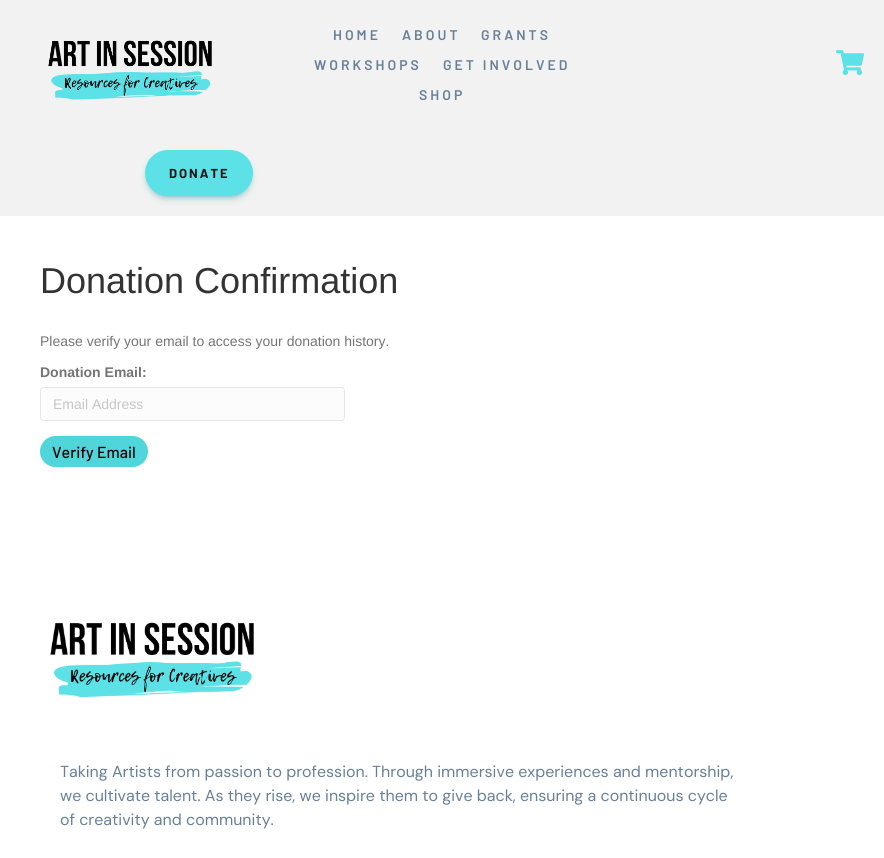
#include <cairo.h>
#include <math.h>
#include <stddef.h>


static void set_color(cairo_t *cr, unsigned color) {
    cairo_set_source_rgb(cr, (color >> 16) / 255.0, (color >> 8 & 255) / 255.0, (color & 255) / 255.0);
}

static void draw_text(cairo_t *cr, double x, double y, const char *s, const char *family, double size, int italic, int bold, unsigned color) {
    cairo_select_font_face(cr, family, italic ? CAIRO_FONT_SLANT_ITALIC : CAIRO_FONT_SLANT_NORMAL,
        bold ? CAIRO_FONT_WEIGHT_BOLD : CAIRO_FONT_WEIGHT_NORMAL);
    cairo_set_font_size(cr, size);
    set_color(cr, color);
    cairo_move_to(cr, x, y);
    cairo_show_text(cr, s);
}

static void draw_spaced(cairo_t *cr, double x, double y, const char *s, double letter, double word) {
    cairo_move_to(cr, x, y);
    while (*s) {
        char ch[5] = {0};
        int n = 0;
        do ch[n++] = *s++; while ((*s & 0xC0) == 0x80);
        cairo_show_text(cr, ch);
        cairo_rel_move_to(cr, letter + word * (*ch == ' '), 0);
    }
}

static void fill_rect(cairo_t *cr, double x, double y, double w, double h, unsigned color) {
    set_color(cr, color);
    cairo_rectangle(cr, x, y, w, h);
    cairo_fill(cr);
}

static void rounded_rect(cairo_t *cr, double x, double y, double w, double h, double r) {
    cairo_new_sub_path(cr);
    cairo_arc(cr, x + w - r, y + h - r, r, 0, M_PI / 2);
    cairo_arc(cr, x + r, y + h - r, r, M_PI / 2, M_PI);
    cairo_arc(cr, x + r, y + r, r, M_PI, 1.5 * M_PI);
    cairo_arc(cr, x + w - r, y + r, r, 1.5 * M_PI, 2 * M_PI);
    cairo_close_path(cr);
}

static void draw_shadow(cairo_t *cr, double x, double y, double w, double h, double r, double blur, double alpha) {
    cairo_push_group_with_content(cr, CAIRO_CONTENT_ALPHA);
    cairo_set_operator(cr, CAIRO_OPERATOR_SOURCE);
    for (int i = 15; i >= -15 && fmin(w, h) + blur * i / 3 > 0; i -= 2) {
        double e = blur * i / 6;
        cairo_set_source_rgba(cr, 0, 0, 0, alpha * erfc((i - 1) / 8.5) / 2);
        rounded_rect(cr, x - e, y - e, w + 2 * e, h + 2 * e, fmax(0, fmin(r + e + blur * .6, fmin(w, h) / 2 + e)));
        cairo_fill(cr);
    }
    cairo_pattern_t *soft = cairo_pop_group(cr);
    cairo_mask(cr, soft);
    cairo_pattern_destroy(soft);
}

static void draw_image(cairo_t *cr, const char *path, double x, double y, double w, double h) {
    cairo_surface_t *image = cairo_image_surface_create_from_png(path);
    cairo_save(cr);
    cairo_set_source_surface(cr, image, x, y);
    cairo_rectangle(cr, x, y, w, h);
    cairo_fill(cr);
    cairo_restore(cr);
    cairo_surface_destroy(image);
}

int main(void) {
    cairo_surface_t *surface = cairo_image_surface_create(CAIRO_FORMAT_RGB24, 884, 858);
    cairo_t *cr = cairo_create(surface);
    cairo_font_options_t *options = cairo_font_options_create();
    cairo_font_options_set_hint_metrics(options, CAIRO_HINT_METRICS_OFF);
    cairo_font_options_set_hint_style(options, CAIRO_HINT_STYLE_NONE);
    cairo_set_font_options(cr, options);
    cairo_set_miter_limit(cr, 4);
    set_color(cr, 0xF2F2F2);
    cairo_paint(cr);
    draw_image(cr, "assets/img1.png", 48, 40, 164, 60);
    cairo_select_font_face(cr, "Barlow SemiBold", CAIRO_FONT_SLANT_NORMAL, CAIRO_FONT_WEIGHT_NORMAL);
    cairo_set_font_size(cr, 14);
    set_color(cr, 0x688097);
    draw_spaced(cr, 333, 40, "HOME", 3, 0);
    draw_spaced(cr, 402, 40, "ABOUT", 3, 0);
    draw_spaced(cr, 481, 40, "GRANTS", 3, 0);
    draw_spaced(cr, 314, 70, "WORKSHOPS", 3, 0);
    draw_spaced(cr, 443, 70, "GET INVOLVED", 3, 0);
    draw_spaced(cr, 419, 100, "SHOP", 3, 0);
    draw_image(cr, "assets/img2.png", 836, 50, 29, 26);
    set_color(cr, 0x46ACAF);
    draw_shadow(cr, 149, 158, 100, 38, 19, 4, 1);
    set_color(cr, 0x5CE1E6);
    rounded_rect(cr, 145, 150, 108, 46, 23);
    cairo_fill(cr);
    cairo_select_font_face(cr, "Barlow", CAIRO_FONT_SLANT_NORMAL, CAIRO_FONT_WEIGHT_BOLD);
    cairo_set_font_size(cr, 13);
    set_color(cr, 0x141414);
    draw_spaced(cr, 169, 178, "DONATE", 2, 0);
    fill_rect(cr, 0, 216, 884, 642, 0xFFFFFF);
    draw_text(cr, 40, 293, "Donation Confirmation", "Liberation Sans", 36, 0, 0, 0x333333);
    draw_text(cr, 40, 346, "Please verify your email to access your donation history.", "Liberation Sans", 14, 0, 0, 0x757575);
    draw_text(cr, 40, 377, "Donation Email:", "Liberation Sans", 14, 0, 1, 0x757575);
    set_color(cr, 0xFCFCFC);
    rounded_rect(cr, 40.5, 387.5, 304, 33, 3.5);
    cairo_fill_preserve(cr);
    set_color(cr, 0xE6E6E6);
    cairo_set_line_width(cr, 1);
    cairo_stroke(cr);
    draw_text(cr, 53, 409, "Email Address", "Liberation Sans", 14, 0, 0, 0xC6C6C6);
    set_color(cr, 0x50D5DA);
    rounded_rect(cr, 40, 436, 108, 31, 15.5);
    cairo_fill(cr);
    draw_text(cr, 52, 458, "Verify Email", "Barlow Medium", 16, 0, 0, 0x0F0101);
    draw_image(cr, "assets/img3.png", 50, 622, 204, 76);
    draw_text(cr, 60, 777, "Taking Artists from passion to profession. Through immersive experiences and mentorship,", "DM Sans", 16, 0, 0, 0x688097);
    draw_text(cr, 60, 801, "we cultivate talent. As they rise, we inspire them to give back, ensuring a continuous cycle", "DM Sans", 16, 0, 0, 0x688097);
    draw_text(cr, 60, 825, "of creativity and community.", "DM Sans", 16, 0, 0, 0x688097);
    cairo_surface_write_to_png(surface, "output.png");
    cairo_font_options_destroy(options);
    cairo_destroy(cr);
    cairo_surface_destroy(surface);
    return 0;
}
